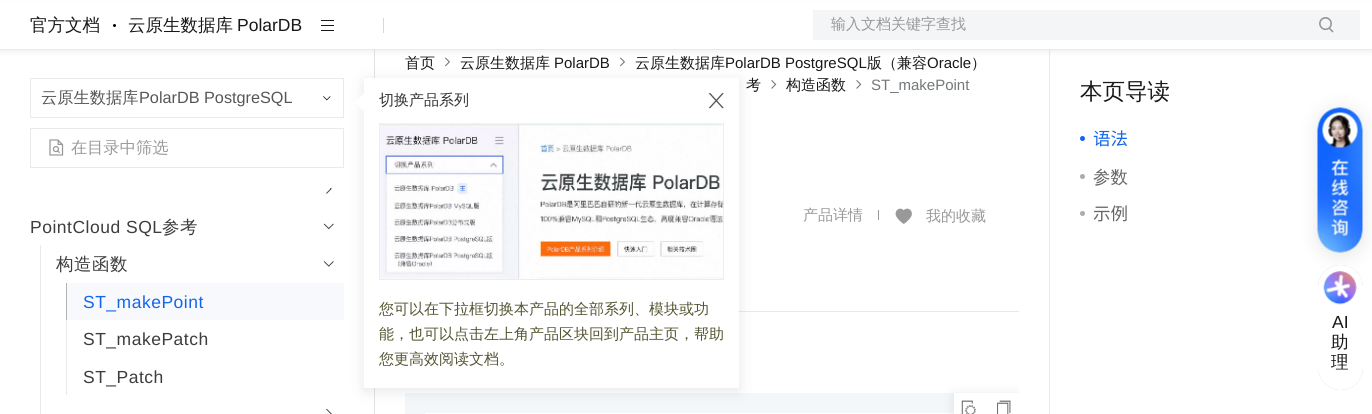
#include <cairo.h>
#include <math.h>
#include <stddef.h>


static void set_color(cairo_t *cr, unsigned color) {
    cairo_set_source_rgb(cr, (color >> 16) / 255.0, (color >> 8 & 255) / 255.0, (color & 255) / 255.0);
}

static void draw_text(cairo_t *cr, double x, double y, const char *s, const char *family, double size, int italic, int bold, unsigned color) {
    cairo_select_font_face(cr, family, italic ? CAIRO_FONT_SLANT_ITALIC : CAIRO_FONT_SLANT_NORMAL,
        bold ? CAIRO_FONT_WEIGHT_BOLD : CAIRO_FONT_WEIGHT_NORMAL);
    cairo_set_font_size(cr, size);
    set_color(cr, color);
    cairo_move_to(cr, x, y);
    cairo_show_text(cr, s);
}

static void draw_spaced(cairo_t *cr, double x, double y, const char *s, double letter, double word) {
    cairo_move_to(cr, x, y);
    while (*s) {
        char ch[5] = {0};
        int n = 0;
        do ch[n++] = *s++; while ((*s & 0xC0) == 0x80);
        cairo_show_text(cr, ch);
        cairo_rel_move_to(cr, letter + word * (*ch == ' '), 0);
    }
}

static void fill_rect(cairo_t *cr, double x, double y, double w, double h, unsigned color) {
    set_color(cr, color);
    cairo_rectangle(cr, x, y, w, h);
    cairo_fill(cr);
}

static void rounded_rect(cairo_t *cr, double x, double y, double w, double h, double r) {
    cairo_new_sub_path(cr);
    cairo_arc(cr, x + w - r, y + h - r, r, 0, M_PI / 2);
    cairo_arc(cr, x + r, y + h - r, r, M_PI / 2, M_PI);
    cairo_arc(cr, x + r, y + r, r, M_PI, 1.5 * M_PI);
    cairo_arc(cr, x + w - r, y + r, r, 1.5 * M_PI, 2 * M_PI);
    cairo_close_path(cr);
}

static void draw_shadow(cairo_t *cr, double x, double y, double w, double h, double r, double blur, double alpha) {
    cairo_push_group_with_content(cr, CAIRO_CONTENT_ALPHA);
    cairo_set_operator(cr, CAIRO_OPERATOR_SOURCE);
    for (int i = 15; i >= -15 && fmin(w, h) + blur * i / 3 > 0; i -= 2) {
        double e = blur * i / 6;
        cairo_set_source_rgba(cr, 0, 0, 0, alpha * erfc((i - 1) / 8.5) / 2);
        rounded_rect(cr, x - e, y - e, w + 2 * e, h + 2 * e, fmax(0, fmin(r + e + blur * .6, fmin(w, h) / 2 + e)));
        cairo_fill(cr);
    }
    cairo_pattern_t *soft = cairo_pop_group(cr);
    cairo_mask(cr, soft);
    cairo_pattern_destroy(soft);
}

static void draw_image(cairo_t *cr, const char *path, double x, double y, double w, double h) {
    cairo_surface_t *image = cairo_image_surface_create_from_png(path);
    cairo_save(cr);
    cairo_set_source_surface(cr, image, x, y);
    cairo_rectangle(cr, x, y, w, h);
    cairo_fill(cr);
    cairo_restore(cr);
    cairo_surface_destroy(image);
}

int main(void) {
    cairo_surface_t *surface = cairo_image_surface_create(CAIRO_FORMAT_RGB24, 1372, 414);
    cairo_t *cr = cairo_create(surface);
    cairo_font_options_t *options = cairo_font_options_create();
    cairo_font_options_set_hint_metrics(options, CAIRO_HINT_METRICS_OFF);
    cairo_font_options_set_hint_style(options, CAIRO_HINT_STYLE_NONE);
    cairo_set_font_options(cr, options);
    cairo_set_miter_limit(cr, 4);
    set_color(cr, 0xFFFFFF);
    cairo_paint(cr);
    fill_rect(cr, 374, 50, 1, 364, 0xE3E3E3);
    fill_rect(cr, 1049, 50, 1, 364, 0xE9E9E9);
    draw_image(cr, "assets/img10.png", 445, 57, 5, 10);
    draw_image(cr, "assets/img10.png", 620, 57, 5, 10);
    set_color(cr, 0x000000);
    draw_shadow(cr, 0, 3, 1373, 50, 0, 2.5, 0.05);
    fill_rect(cr, 0, 1, 1372, 48, 0xFFFFFF);
    fill_rect(cr, 0, 49, 1372, 1, 0xE9E9E9);
    fill_rect(cr, 383, 18, 1, 15, 0xD7D8D9);
    draw_text(cr, 30, 31, "官方文档", "WenQuanYi Zen Hei Medium", 17.5, 0, 0, 0x181818);
    set_color(cr, 0x000000);
    cairo_new_path(cr);
    cairo_arc(cr, 114.5, 25.5, 1.5, 0, 2 * M_PI);
    cairo_fill(cr);
    draw_text(cr, 128, 31, "云原生数据库", "WenQuanYi Zen Hei Medium", 17.5, 0, 0, 0x181818);
    draw_text(cr, 237, 31, "PolarDB", "Liberation Sans", 17.5, 0, 0, 0x181818);
    fill_rect(cr, 321, 20, 13, 1, 0x181818);
    fill_rect(cr, 321, 25, 13, 1, 0x181818);
    fill_rect(cr, 321, 30, 13, 1, 0x181818);
    fill_rect(cr, 813, 10, 547, 30, 0xF4F5F7);
    draw_text(cr, 831, 29, "输入文档关键字查找", "WenQuanYi Zen Hei Medium", 15, 0, 0, 0x999999);
    draw_image(cr, "assets/img1.png", 1319, 17, 15, 16);
    cairo_rectangle(cr, 30.5, 78.5, 313, 39);
    set_color(cr, 0xEAEAEA);
    cairo_set_line_width(cr, 1);
    cairo_stroke(cr);
    draw_text(cr, 41, 103, "云原生数据库", "WenQuanYi Zen Hei Medium", 16.25, 0, 0, 0x575757);
    draw_text(cr, 139, 103, "PolarDB PostgreSQL", "Liberation Sans", 16.25, 0, 0, 0x575757);
    draw_image(cr, "assets/img2.png", 323, 96, 8, 5);
    cairo_rectangle(cr, 30.5, 128.5, 313, 39);
    set_color(cr, 0xEAEAEA);
    cairo_stroke(cr);
    fill_rect(cr, 67, 283, 277, 37, 0xF7F9FC);
    fill_rect(cr, 739, 311, 280, 1, 0xE9E9E9);
    fill_rect(cr, 405, 393, 549, 21, 0xF4F7FA);
    fill_rect(cr, 425, 413, 529, 1, 0xFFFFFF);
    set_color(cr, 0x2F3133);
    draw_shadow(cr, 364, 81, 375, 310, 0, 7.5, 0.12);
    fill_rect(cr, 364, 78, 375, 310, 0xFFFFFF);
    cairo_new_path(cr);
    cairo_move_to(cr, 365, 92.5);
    cairo_line_to(cr, 365, 112.5);
    cairo_line_to(cr, 355, 102.5);
    cairo_close_path(cr);
    cairo_fill(cr);
    draw_text(cr, 379, 105, "切换产品系列", "WenQuanYi Zen Hei Medium", 15, 0, 0, 0x333333);
    draw_image(cr, "assets/img3.png", 708, 93, 16, 16);
    cairo_rectangle(cr, 379.5, 123.5, 344, 156);
    set_color(cr, 0xEDEDED);
    cairo_stroke(cr);
    draw_image(cr, "assets/img4.png", 380, 123, 344, 156);
    draw_text(cr, 379, 314, "您可以在下拉框切换本产品的全部系列、模块或功", "WenQuanYi Zen Hei Medium", 15, 0, 0, 0x555533);
    draw_text(cr, 379, 339, "能，也可以点击左上角产品区块回到产品主页，帮助", "WenQuanYi Zen Hei Medium", 15, 0, 0, 0x555533);
    draw_text(cr, 379, 364, "您更高效阅读文档。", "WenQuanYi Zen Hei Medium", 15, 0, 0, 0x555533);
    draw_image(cr, "assets/img5.png", 49, 139, 15, 17);
    draw_text(cr, 71, 153, "在目录中筛选", "WenQuanYi Zen Hei Medium", 16.25, 0, 0, 0x999999);
    draw_image(cr, "assets/img6.png", 326, 188, 6, 6);
    cairo_select_font_face(cr, "Liberation Sans", CAIRO_FONT_SLANT_NORMAL, CAIRO_FONT_WEIGHT_NORMAL);
    cairo_set_font_size(cr, 17.5);
    set_color(cr, 0x3D3D3D);
    draw_spaced(cr, 30, 233, "PointCloud SQL", 0.5, 0);
    cairo_select_font_face(cr, "WenQuanYi Zen Hei Medium", CAIRO_FONT_SLANT_NORMAL, CAIRO_FONT_WEIGHT_NORMAL);
    draw_spaced(cr, 162, 233, "参考", 0.5, 0);
    draw_image(cr, "assets/img7.png", 323, 223, 11, 7);
    fill_rect(cr, 40, 245, 1, 169, 0xE9E9E9);
    set_color(cr, 0x3D3D3D);
    draw_spaced(cr, 56, 270, "构造函数", 0.5, 0);
    draw_image(cr, "assets/img8.png", 323, 261, 11, 6);
    fill_rect(cr, 66, 283, 1, 37, 0xB3B3B3);
    cairo_select_font_face(cr, "Liberation Sans", CAIRO_FONT_SLANT_NORMAL, CAIRO_FONT_WEIGHT_NORMAL);
    set_color(cr, 0x1366EC);
    draw_spaced(cr, 83, 308, "ST_makePoint", 0.5, 0);
    fill_rect(cr, 66, 320, 1, 75, 0xE9E9E9);
    set_color(cr, 0x3D3D3D);
    draw_spaced(cr, 83, 345, "ST_makePatch", 0.5, 0);
    draw_spaced(cr, 83, 383, "ST_Patch", 0.5, 0);
    draw_image(cr, "assets/img9.png", 326, 408, 6, 6);
    draw_text(cr, 405, 68, "首页", "WenQuanYi Zen Hei Medium", 15, 0, 0, 0x181818);
    draw_text(cr, 460, 68, "云原生数据库", "WenQuanYi Zen Hei Medium", 15, 0, 0, 0x181818);
    draw_text(cr, 554, 68, "PolarDB", "Liberation Sans", 15, 0, 0, 0x181818);
    draw_text(cr, 635, 68, "云原生数据库", "WenQuanYi Zen Hei Medium", 15, 0, 0, 0x181818);
    draw_text(cr, 725, 68, "PolarDB PostgreSQL", "Liberation Sans", 15, 0, 0, 0x181818);
    draw_text(cr, 867, 68, "版（兼容", "WenQuanYi Zen Hei Medium", 15, 0, 0, 0x181818);
    draw_text(cr, 927, 68, "Oracle", "Liberation Sans", 15, 0, 0, 0x181818);
    draw_text(cr, 971, 68, "）", "WenQuanYi Zen Hei Medium", 15, 0, 0, 0x181818);
    draw_text(cr, 746, 90, "考", "WenQuanYi Zen Hei Medium", 15, 0, 0, 0x181818);
    draw_image(cr, "assets/img11.png", 771, 80, 6, 9);
    draw_text(cr, 786, 90, "构造函数", "WenQuanYi Zen Hei Medium", 15, 0, 0, 0x181818);
    draw_image(cr, "assets/img11.png", 856, 80, 6, 9);
    draw_text(cr, 871, 90, "ST_makePoint", "Liberation Sans", 15, 0, 0, 0x73777A);
    draw_text(cr, 803, 220, "产品详情", "WenQuanYi Zen Hei Medium", 15, 0, 0, 0x999999);
    fill_rect(cr, 878, 210, 1, 10, 0x999999);
    draw_image(cr, "assets/img12.png", 895, 208, 17, 16);
    draw_text(cr, 926, 221, "我的收藏", "WenQuanYi Zen Hei Medium", 15, 0, 0, 0x999999);
    cairo_save(cr);
    cairo_rectangle(cr, 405, 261, 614, 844);
    cairo_clip(cr);
    set_color(cr, 0x000000);
    draw_shadow(cr, 954, 395, 65, 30, 0, 6, 0.1);
    cairo_restore(cr);
    fill_rect(cr, 954, 393, 65, 21, 0xFFFFFF);
    draw_image(cr, "assets/img13.png", 961, 400, 15, 14);
    draw_image(cr, "assets/img14.png", 997, 400, 14, 14);
    draw_text(cr, 1080, 99, "本页导读", "WenQuanYi Zen Hei Medium", 22.5, 0, 0, 0x181818);
    set_color(cr, 0x1366EC);
    cairo_new_path(cr);
    cairo_arc(cr, 1082.5, 138.5, 2.5, 0, 2 * M_PI);
    cairo_fill(cr);
    draw_text(cr, 1093, 145, "语法", "Noto Sans CJK SC", 17.5, 0, 0, 0x1366EC);
    set_color(cr, 0xABABAB);
    cairo_new_path(cr);
    cairo_arc(cr, 1082.5, 176.5, 2.5, 0, 2 * M_PI);
    cairo_fill(cr);
    draw_text(cr, 1093, 183, "参数", "WenQuanYi Zen Hei Medium", 17.5, 0, 0, 0x666666);
    set_color(cr, 0xABABAB);
    cairo_new_path(cr);
    cairo_arc(cr, 1082.5, 213.5, 2.5, 0, 2 * M_PI);
    cairo_fill(cr);
    draw_text(cr, 1093, 220, "示例", "Noto Sans CJK SC", 17.5, 0, 0, 0x666666);
    set_color(cr, 0x000000);
    draw_shadow(cr, 1318, 110, 45, 145, 22.5, 9.5, 0.1);
    draw_image(cr, "assets/img15.png", 1317, 107, 46, 146);
    cairo_save(cr);
    rounded_rect(cr, 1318, 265, 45, 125, 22.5);
    cairo_clip(cr);
    set_color(cr, 0x25A5FF);
    draw_shadow(cr, 1255, 203, 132, 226, 0, 5, 0.25);
    set_color(cr, 0x7B47FF);
    draw_shadow(cr, 1255, 203, 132, 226, 0, 5, 0.1);
    set_color(cr, 0xFF6432);
    draw_shadow(cr, 1255, 203, 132, 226, 0, 5, 0.09);
    set_color(cr, 0x1548FF);
    draw_shadow(cr, 1255, 203, 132, 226, 0, 5, 0.08);
    cairo_restore(cr);
    set_color(cr, 0xFFFFFF);
    rounded_rect(cr, 1318, 265, 45, 125, 22.5);
    cairo_fill(cr);
    draw_image(cr, "assets/img16.png", 1323, 271, 34, 34);
    draw_image(cr, "assets/img17.png", 1326, 274, 25, 24);
    draw_text(cr, 1332, 328, "AI", "Liberation Sans", 17.5, 0, 0, 0x181818);
    draw_text(cr, 1331, 348, "助", "WenQuanYi Zen Hei Medium", 17.5, 0, 0, 0x181818);
    draw_text(cr, 1331, 368, "理", "WenQuanYi Zen Hei Medium", 17.5, 0, 0, 0x181818);
    cairo_surface_write_to_png(surface, "output.png");
    cairo_font_options_destroy(options);
    cairo_destroy(cr);
    cairo_surface_destroy(surface);
    return 0;
}
